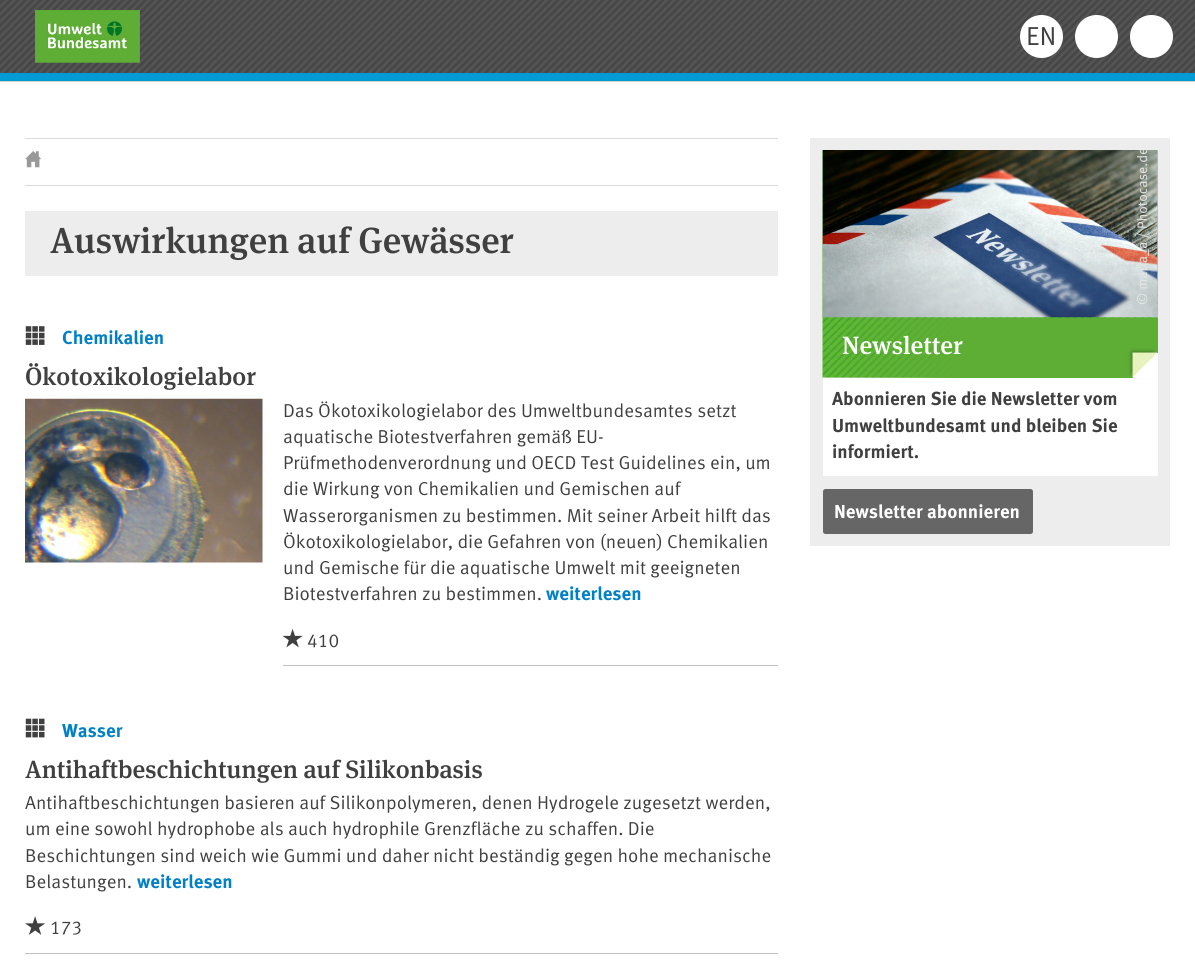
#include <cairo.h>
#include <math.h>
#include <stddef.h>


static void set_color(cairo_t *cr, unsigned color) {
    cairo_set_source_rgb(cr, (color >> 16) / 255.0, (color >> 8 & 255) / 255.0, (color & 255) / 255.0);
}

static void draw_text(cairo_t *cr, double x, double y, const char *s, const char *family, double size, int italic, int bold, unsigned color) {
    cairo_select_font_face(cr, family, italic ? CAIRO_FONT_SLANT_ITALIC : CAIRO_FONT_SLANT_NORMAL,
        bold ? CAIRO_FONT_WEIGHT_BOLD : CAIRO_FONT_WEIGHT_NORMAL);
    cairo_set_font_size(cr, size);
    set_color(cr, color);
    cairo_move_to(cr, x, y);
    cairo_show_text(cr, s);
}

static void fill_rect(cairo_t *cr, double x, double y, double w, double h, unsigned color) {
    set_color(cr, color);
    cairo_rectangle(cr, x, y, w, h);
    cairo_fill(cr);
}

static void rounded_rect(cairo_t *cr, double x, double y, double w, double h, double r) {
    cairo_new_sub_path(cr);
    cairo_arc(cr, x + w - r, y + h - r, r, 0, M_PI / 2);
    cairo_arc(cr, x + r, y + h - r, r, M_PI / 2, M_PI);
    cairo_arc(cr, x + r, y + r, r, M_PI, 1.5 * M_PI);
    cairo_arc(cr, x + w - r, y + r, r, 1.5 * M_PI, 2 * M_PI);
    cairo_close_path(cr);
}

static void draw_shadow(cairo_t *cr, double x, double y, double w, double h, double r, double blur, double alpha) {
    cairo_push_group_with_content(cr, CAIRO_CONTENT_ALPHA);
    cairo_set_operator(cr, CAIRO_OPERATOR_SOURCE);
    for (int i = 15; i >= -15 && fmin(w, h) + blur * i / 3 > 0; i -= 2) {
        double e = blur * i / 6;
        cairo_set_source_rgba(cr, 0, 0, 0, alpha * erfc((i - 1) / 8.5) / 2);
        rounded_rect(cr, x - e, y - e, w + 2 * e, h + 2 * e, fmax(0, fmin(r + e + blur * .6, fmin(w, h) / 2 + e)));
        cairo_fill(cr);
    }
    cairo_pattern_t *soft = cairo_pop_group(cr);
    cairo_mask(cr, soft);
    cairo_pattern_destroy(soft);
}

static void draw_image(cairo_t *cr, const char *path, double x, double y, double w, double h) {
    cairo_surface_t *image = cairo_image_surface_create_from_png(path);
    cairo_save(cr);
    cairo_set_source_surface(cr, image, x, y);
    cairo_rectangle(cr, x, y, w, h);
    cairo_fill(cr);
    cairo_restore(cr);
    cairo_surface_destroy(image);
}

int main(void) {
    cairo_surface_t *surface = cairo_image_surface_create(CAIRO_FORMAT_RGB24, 1195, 975);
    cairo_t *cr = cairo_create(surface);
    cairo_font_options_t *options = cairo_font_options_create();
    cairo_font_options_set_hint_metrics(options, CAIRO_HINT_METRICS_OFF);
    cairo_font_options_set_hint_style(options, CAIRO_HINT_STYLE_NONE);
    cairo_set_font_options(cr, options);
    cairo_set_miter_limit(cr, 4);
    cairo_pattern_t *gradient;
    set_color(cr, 0xFFFFFF);
    cairo_paint(cr);
    draw_image(cr, "assets/img1.png", 0, 0, 1195, 82);
    fill_rect(cr, 0, 73, 1195, 8, 0x009BD5);
    draw_image(cr, "assets/img2.png", 35, 10, 105, 53);
    set_color(cr, 0xFFFFFF);
    cairo_arc(cr, 1041.5, 36.5, 21.5, 0, 2 * M_PI);
    cairo_fill(cr);
    draw_text(cr, 1026, 45, "EN", "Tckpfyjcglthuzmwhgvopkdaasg", 26, 0, 0, 0x404040);
    set_color(cr, 0xFFFFFF);
    cairo_new_path(cr);
    cairo_arc(cr, 1096.5, 36.5, 21.5, 0, 2 * M_PI);
    cairo_fill(cr);
    cairo_arc(cr, 1151.5, 36.5, 21.5, 0, 2 * M_PI);
    cairo_fill(cr);
    fill_rect(cr, 25, 138, 753, 1, 0xDADADA);
    fill_rect(cr, 25, 185, 753, 1, 0xDADADA);
    draw_image(cr, "assets/img3.png", 25, 151, 16, 17);
    fill_rect(cr, 25, 211, 753, 65, 0xEDEDED);
    draw_text(cr, 50, 253, "Auswirkungen auf Gewässer", "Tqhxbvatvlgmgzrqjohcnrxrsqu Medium", 36.25, 0, 0, 0x404040);
    draw_image(cr, "assets/img4.png", 25, 326, 20, 19);
    draw_text(cr, 62, 344, "Chemikalien", "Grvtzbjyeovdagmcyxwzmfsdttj", 18.75, 0, 1, 0x0081C7);
    draw_text(cr, 25, 385, "Ökotoxikologielabor", "Tqhxbvatvlgmgzrqjohcnrxrsqu Medium", 25, 0, 0, 0x404040);
    draw_image(cr, "assets/img5.png", 25, 398, 238, 165);
    draw_text(cr, 283, 417, "Das Ökotoxikologielabor des Umweltbundesamtes setzt", "Tckpfyjcglthuzmwhgvopkdaasg", 18.75, 0, 0, 0x404040);
    draw_text(cr, 283, 443, "aquatische Biotestverfahren gemäß EU-", "Tckpfyjcglthuzmwhgvopkdaasg", 18.75, 0, 0, 0x404040);
    draw_text(cr, 283, 469, "Prüfmethodenverordnung und OECD Test Guidelines ein, um", "Tckpfyjcglthuzmwhgvopkdaasg", 18.75, 0, 0, 0x404040);
    draw_text(cr, 283, 495, "die Wirkung von Chemikalien und Gemischen auf", "Tckpfyjcglthuzmwhgvopkdaasg", 18.75, 0, 0, 0x404040);
    draw_text(cr, 283, 522, "Wasserorganismen zu bestimmen. Mit seiner Arbeit hilft das", "Tckpfyjcglthuzmwhgvopkdaasg", 18.75, 0, 0, 0x404040);
    draw_text(cr, 283, 548, "Ökotoxikologielabor, die Gefahren von (neuen) Chemikalien", "Tckpfyjcglthuzmwhgvopkdaasg", 18.75, 0, 0, 0x404040);
    draw_text(cr, 283, 574, "und Gemische für die aquatische Umwelt mit geeigneten", "Tckpfyjcglthuzmwhgvopkdaasg", 18.75, 0, 0, 0x404040);
    draw_text(cr, 283, 600, "Biotestverfahren zu bestimmen.", "Tckpfyjcglthuzmwhgvopkdaasg", 18.75, 0, 0, 0x404040);
    draw_text(cr, 546, 600, "weiterlesen", "Grvtzbjyeovdagmcyxwzmfsdttj", 18.75, 0, 1, 0x0081C7);
    fill_rect(cr, 283, 665, 495, 1, 0xC0C0C0);
    draw_image(cr, "assets/img6.png", 282, 628, 21, 20);
    draw_text(cr, 307, 647, "410", "Tckpfyjcglthuzmwhgvopkdaasg", 18.75, 0, 0, 0x404040);
    draw_image(cr, "assets/img7.png", 25, 718, 20, 20);
    draw_text(cr, 62, 737, "Wasser", "Grvtzbjyeovdagmcyxwzmfsdttj", 18.75, 0, 1, 0x0081C7);
    draw_text(cr, 25, 778, "Antihaftbeschichtungen auf Silikonbasis", "Tqhxbvatvlgmgzrqjohcnrxrsqu Medium", 25, 0, 0, 0x404040);
    draw_text(cr, 25, 809, "Antihaftbeschichtungen basieren auf Silikonpolymeren, denen Hydrogele zugesetzt werden,", "Tckpfyjcglthuzmwhgvopkdaasg", 18.75, 0, 0, 0x404040);
    draw_text(cr, 25, 835, "um eine sowohl hydrophobe als auch hydrophile Grenzfläche zu schaffen. Die", "Tckpfyjcglthuzmwhgvopkdaasg", 18.75, 0, 0, 0x404040);
    draw_text(cr, 25, 862, "Beschichtungen sind weich wie Gummi und daher nicht beständig gegen hohe mechanische", "Tckpfyjcglthuzmwhgvopkdaasg", 18.75, 0, 0, 0x404040);
    draw_text(cr, 25, 888, "Belastungen.", "Tckpfyjcglthuzmwhgvopkdaasg", 18.75, 0, 0, 0x404040);
    draw_text(cr, 137, 888, "weiterlesen", "Grvtzbjyeovdagmcyxwzmfsdttj", 18.75, 0, 1, 0x0081C7);
    fill_rect(cr, 25, 953, 753, 1, 0xC0C0C0);
    draw_image(cr, "assets/img8.png", 25, 916, 20, 19);
    draw_text(cr, 50, 934, "173", "Tckpfyjcglthuzmwhgvopkdaasg", 18.75, 0, 0, 0x404040);
    fill_rect(cr, 810, 138, 360, 408, 0xEDEDED);
    draw_image(cr, "assets/img9.png", 822, 150, 336, 228);
    draw_image(cr, "assets/img10.png", 822, 150, 336, 168);
    cairo_save(cr);
    cairo_rectangle(cr, 823, 150, 335, 168);
    cairo_clip(cr);
    cairo_save(cr);
    cairo_translate(cr, 1147, 305);
    cairo_rotate(cr, -90 * M_PI / 180);
    draw_text(cr, 0, 0, "© maria_a / Photocase.de", "Tckpfyjcglthuzmwhgvopkdaasg", 13.75, 0, 0, 0xE7E6E6);
    cairo_restore(cr);
    cairo_restore(cr);
    gradient = cairo_pattern_create_linear(823, 348, 1158, 348);
    cairo_pattern_add_color_stop_rgba(gradient, 0, 0.369, 0.678, 0.208, 0);
    cairo_pattern_add_color_stop_rgba(gradient, 0.4, 0.369, 0.678, 0.208, 1);
    cairo_pattern_add_color_stop_rgba(gradient, 1, 0.369, 0.678, 0.208, 1);
    cairo_set_source(cr, gradient);
    cairo_pattern_destroy(gradient);
    cairo_rectangle(cr, 826, 318, 332, 60);
    cairo_fill(cr);
    draw_text(cr, 842, 354, "Newsletter", "Tqhxbvatvlgmgzrqjohcnrxrsqu Medium", 25, 0, 0, 0xFFFFFF);
    fill_rect(cr, 823, 378, 335, 98, 0xFFFFFF);
    set_color(cr, 0x000000);
    draw_shadow(cr, 1133, 353, 20, 20, 0, 2.5, 0.6);
    fill_rect(cr, 1133, 353, 25, 25, 0xFFFFFF);
    set_color(cr, 0xE8F2BD);
    cairo_new_path(cr);
    cairo_move_to(cr, 1132.5, 352.5);
    cairo_line_to(cr, 1157.5, 352.5);
    cairo_line_to(cr, 1145, 365);
    cairo_close_path(cr);
    cairo_fill(cr);
    cairo_new_path(cr);
    cairo_move_to(cr, 1132.5, 377.5);
    cairo_line_to(cr, 1132.5, 352.5);
    cairo_line_to(cr, 1145, 365);
    cairo_close_path(cr);
    cairo_fill(cr);
    draw_text(cr, 832, 405, "Abonnieren Sie die Newsletter vom", "Grvtzbjyeovdagmcyxwzmfsdttj", 18.75, 0, 1, 0x404040);
    draw_text(cr, 832, 432, "Umweltbundesamt und bleiben Sie", "Grvtzbjyeovdagmcyxwzmfsdttj", 18.75, 0, 1, 0x404040);
    draw_text(cr, 832, 458, "informiert.", "Grvtzbjyeovdagmcyxwzmfsdttj", 18.75, 0, 1, 0x404040);
    set_color(cr, 0x666666);
    rounded_rect(cr, 823, 489, 210, 45, 2.5);
    cairo_fill(cr);
    draw_text(cr, 834, 518, "Newsletter abonnieren", "Grvtzbjyeovdagmcyxwzmfsdttj", 18.75, 0, 1, 0xFFFFFF);
    cairo_surface_write_to_png(surface, "output.png");
    cairo_font_options_destroy(options);
    cairo_destroy(cr);
    cairo_surface_destroy(surface);
    return 0;
}
